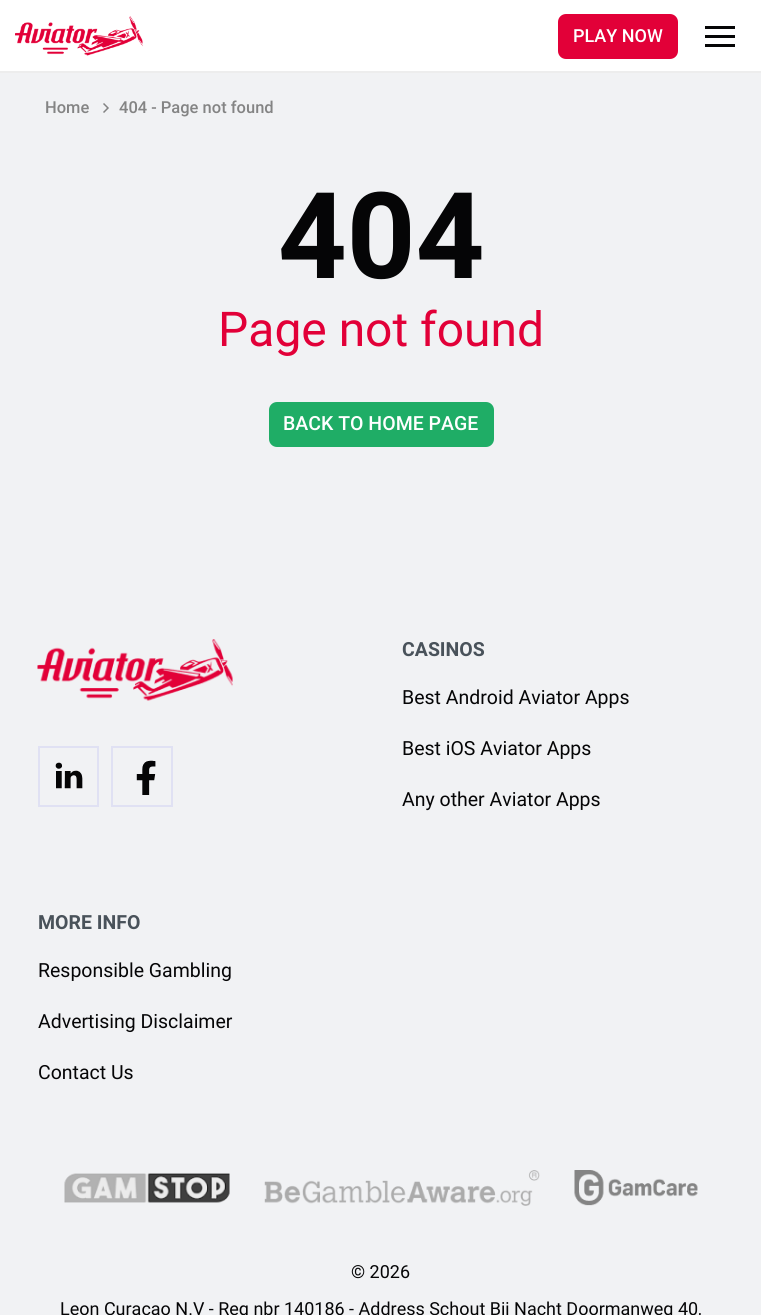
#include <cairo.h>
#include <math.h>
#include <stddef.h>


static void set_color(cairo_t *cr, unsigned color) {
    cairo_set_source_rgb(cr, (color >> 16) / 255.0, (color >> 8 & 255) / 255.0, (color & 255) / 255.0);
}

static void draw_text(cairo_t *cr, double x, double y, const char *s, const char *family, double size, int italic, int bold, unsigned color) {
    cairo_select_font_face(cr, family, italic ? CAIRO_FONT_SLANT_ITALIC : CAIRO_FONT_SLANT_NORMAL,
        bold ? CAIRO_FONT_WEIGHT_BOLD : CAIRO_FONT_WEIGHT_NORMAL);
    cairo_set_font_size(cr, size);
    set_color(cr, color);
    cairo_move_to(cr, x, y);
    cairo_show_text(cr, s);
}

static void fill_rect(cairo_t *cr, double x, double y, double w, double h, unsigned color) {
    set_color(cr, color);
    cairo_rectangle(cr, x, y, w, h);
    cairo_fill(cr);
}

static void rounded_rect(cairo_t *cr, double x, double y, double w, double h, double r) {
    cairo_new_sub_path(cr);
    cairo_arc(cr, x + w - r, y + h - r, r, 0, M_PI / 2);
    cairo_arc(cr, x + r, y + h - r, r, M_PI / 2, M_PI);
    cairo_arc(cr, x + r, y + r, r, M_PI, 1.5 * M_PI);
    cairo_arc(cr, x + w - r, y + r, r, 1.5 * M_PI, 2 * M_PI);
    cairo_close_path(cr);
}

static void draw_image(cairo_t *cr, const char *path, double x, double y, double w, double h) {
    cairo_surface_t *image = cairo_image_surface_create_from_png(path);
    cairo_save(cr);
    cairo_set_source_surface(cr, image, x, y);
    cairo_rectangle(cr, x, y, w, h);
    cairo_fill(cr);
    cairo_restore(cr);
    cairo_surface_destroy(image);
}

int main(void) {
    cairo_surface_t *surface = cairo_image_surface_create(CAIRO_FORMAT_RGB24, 761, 1315);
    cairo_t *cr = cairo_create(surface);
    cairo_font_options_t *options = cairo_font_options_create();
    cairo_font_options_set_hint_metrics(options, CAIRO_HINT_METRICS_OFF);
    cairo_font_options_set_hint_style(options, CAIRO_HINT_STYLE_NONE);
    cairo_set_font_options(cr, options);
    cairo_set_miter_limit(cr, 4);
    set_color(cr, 0xF1F2F4);
    cairo_paint(cr);
    fill_rect(cr, 0, 0, 761, 71, 0xFFFFFF);
    fill_rect(cr, 0, 71, 761, 2, 0xEDEDED);
    draw_image(cr, "assets/img1.png", 15, 16, 128, 40);
    set_color(cr, 0xE20038);
    rounded_rect(cr, 558, 14, 120, 45, 8);
    cairo_fill(cr);
    draw_text(cr, 573, 42, "PLAY NOW", "Roboto Medium", 18, 0, 0, 0xFFFFFF);
    fill_rect(cr, 705, 26, 30, 3, 0x050506);
    fill_rect(cr, 705, 35, 30, 3, 0x050506);
    fill_rect(cr, 705, 44, 30, 3, 0x050506);
    draw_text(cr, 45, 113, "Home", "Roboto Medium", 16.5, 0, 0, 0x848484);
    cairo_new_path(cr);
    cairo_move_to(cr, 103.5, 112.5);
    cairo_line_to(cr, 108, 108);
    cairo_line_to(cr, 103.5, 103.5);
    set_color(cr, 0x828282);
    cairo_set_line_width(cr, 1.5);
    cairo_stroke(cr);
    draw_text(cr, 119, 113, "404 - Page not found", "Roboto Medium", 16.5, 0, 0, 0x848484);
    draw_text(cr, 278, 278, "404", "Roboto", 120, 0, 1, 0x050506);
    draw_text(cr, 218, 346, "Page not found", "Roboto", 48, 0, 0, 0xE20038);
    set_color(cr, 0x1FAD66);
    rounded_rect(cr, 269, 402, 225, 45, 8);
    cairo_fill(cr);
    draw_text(cr, 283, 430, "BACK TO HOME PAGE", "Roboto Medium", 19.5, 0, 0, 0xFFFFFF);
    draw_image(cr, "assets/img2.png", 37, 639, 196, 62);
    cairo_rectangle(cr, 39, 747, 59, 59);
    set_color(cr, 0xE0E1F3);
    cairo_set_line_width(cr, 2);
    cairo_stroke(cr);
    draw_image(cr, "assets/img3.png", 55, 762, 28, 27);
    cairo_rectangle(cr, 112, 747, 60, 59);
    cairo_stroke(cr);
    draw_image(cr, "assets/img4.png", 136, 760, 20, 35);
    draw_text(cr, 402, 656, "CASINOS", "Roboto", 19.5, 0, 1, 0x49525A);
    draw_text(cr, 402, 704, "Best Android Aviator Apps", "Roboto", 19.5, 0, 0, 0x050506);
    draw_text(cr, 402, 755, "Best iOS Aviator Apps", "Roboto", 19.5, 0, 0, 0x050506);
    draw_text(cr, 402, 806, "Any other Aviator Apps", "Roboto", 19.5, 0, 0, 0x050506);
    draw_text(cr, 38, 929, "MORE INFO", "Roboto", 19.5, 0, 1, 0x49525A);
    draw_text(cr, 38, 977, "Responsible Gambling", "Roboto", 19.5, 0, 0, 0x050506);
    draw_text(cr, 38, 1028, "Advertising Disclaimer", "Roboto", 19.5, 0, 0, 0x050506);
    draw_text(cr, 38, 1079, "Contact Us", "Roboto", 19.5, 0, 0, 0x050506);
    draw_image(cr, "assets/img5.png", 64, 1173, 166, 30);
    draw_image(cr, "assets/img6.png", 264, 1170, 276, 36);
    draw_image(cr, "assets/img7.png", 574, 1170, 124, 36);
    draw_text(cr, 351, 1278, "© 2026", "Roboto", 18, 0, 0, 0x050506);
    draw_text(cr, 60, 1315, "Leon Curacao N.V - Reg nbr 140186 - Address Schout Bij Nacht Doormanweg 40,", "Roboto", 18, 0, 0, 0x050506);
    cairo_surface_write_to_png(surface, "output.png");
    cairo_font_options_destroy(options);
    cairo_destroy(cr);
    cairo_surface_destroy(surface);
    return 0;
}
